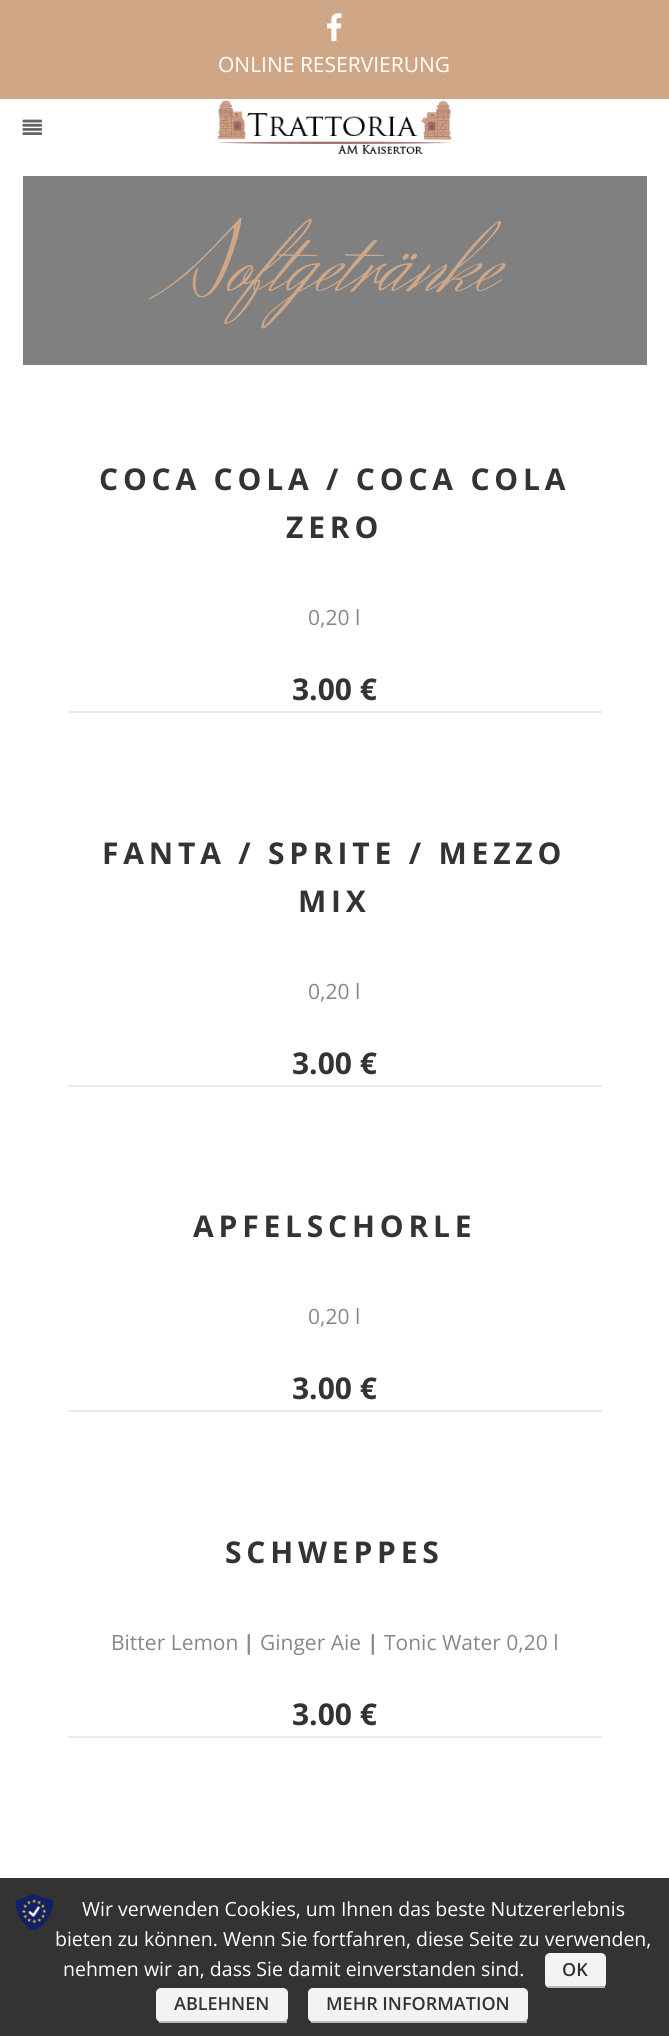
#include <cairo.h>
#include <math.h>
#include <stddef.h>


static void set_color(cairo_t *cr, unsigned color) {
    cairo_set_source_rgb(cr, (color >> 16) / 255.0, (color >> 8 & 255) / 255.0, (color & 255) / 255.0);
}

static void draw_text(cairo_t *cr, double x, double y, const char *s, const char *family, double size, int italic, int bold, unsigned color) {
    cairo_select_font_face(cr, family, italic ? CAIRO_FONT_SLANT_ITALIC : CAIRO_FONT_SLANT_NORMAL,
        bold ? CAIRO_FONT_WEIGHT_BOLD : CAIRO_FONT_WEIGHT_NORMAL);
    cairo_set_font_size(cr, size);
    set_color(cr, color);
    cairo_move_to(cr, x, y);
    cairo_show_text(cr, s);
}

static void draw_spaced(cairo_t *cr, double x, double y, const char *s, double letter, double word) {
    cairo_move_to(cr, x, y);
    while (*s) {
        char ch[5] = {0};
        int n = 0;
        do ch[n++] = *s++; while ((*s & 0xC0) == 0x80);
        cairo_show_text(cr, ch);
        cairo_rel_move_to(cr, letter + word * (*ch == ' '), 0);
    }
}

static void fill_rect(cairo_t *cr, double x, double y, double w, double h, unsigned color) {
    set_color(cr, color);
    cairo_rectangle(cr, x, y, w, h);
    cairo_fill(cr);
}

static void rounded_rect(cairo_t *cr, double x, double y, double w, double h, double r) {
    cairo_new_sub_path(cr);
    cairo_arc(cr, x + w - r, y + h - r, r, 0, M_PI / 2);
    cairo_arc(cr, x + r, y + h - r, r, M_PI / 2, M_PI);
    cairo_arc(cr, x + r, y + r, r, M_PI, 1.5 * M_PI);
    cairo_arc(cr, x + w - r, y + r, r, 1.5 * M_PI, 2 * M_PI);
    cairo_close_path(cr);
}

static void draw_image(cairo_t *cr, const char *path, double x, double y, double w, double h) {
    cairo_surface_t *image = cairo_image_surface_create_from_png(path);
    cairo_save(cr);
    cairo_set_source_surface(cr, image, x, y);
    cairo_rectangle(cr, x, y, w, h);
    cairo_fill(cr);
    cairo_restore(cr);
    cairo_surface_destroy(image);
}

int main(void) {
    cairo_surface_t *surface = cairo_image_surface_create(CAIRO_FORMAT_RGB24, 669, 2036);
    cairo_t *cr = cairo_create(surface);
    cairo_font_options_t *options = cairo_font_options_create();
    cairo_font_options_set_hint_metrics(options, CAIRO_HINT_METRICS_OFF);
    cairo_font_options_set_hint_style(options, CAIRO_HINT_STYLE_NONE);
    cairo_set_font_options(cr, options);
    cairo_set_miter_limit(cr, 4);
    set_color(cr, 0xFFFFFF);
    cairo_paint(cr);
    fill_rect(cr, 0, 0, 669, 99, 0xCFA787);
    draw_image(cr, "assets/img1.png", 327, 13, 15, 29);
    draw_text(cr, 218, 72, "ONLINE RESERVIERUNG", "Open Sans", 21, 0, 0, 0xFFFFFF);
    draw_image(cr, "assets/img2.png", 22, 119, 20, 16);
    draw_image(cr, "assets/img3.png", 217, 100, 235, 54);
    fill_rect(cr, 23, 176, 624, 189, 0x808080);
    draw_text(cr, 170, 291, "Softgetränke", "Herr Von Muellerhoff", 102, 0, 0, 0xCFA787);
    cairo_select_font_face(cr, "Open Sans", CAIRO_FONT_SLANT_NORMAL, CAIRO_FONT_WEIGHT_BOLD);
    cairo_set_font_size(cr, 30);
    set_color(cr, 0x333333);
    draw_spaced(cr, 99, 490, "COCA COLA / COCA COLA", 4.8, 0);
    draw_spaced(cr, 286, 538, "ZERO", 4.8, 0);
    draw_text(cr, 308, 625, "0,20 l", "Open Sans", 21, 0, 0, 0x888888);
    draw_text(cr, 292, 700, "3.00 €", "Open Sans", 30, 0, 1, 0x333333);
    fill_rect(cr, 68, 711, 534, 2, 0xE9E9E9);
    set_color(cr, 0x333333);
    draw_spaced(cr, 102, 864, "FANTA / SPRITE / MEZZO", 4.8, 0);
    draw_spaced(cr, 298, 912, "MIX", 4.8, 0);
    draw_text(cr, 308, 999, "0,20 l", "Open Sans", 21, 0, 0, 0x888888);
    draw_text(cr, 292, 1074, "3.00 €", "Open Sans", 30, 0, 1, 0x333333);
    fill_rect(cr, 68, 1085, 534, 2, 0xE9E9E9);
    set_color(cr, 0x333333);
    draw_spaced(cr, 193, 1237, "APFELSCHORLE", 4.8, 0);
    draw_text(cr, 308, 1324, "0,20 l", "Open Sans", 21, 0, 0, 0x888888);
    draw_text(cr, 292, 1399, "3.00 €", "Open Sans", 30, 0, 1, 0x333333);
    fill_rect(cr, 68, 1410, 534, 2, 0xE9E9E9);
    set_color(cr, 0x333333);
    draw_spaced(cr, 225, 1563, "SCHWEPPES", 4.8, 0);
    draw_text(cr, 111, 1650, "Bitter Lemon", "Open Sans", 21, 0, 0, 0x888888);
    draw_text(cr, 243, 1650, "|", "Open Sans", 21, 0, 1, 0x888888);
    draw_text(cr, 260, 1650, "Ginger Aie", "Open Sans", 21, 0, 0, 0x888888);
    draw_text(cr, 367, 1650, "|", "Open Sans", 21, 0, 1, 0x888888);
    draw_text(cr, 384, 1650, "Tonic Water 0,20 l", "Open Sans", 21, 0, 0, 0x888888);
    draw_text(cr, 292, 1725, "3.00 €", "Open Sans", 30, 0, 1, 0x333333);
    fill_rect(cr, 68, 1736, 534, 2, 0xE9E9E9);
    fill_rect(cr, 0, 1878, 669, 158, 0x333333);
    draw_image(cr, "assets/img4.png", 15, 1893, 38, 37);
    draw_text(cr, 82, 1916, "Wir verwenden Cookies, um Ihnen das beste Nutzererlebnis", "Open Sans", 19.5, 0, 0, 0xFFFFFF);
    draw_text(cr, 55, 1946, "bieten zu können. Wenn Sie fortfahren, diese Seite zu verwenden,", "Open Sans", 19.5, 0, 0, 0xFFFFFF);
    draw_text(cr, 63, 1976, "nehmen wir an, dass Sie damit einverstanden sind.", "Open Sans", 19.5, 0, 0, 0xFFFFFF);
    set_color(cr, 0xF3F3F3);
    rounded_rect(cr, 545, 1953, 61, 35, 5);
    cairo_fill(cr);
    fill_rect(cr, 548, 1986, 57, 2, 0xBBBBBB);
    draw_text(cr, 562, 1976, "OK", "Open Sans SemiBold", 18, 0, 0, 0x333333);
    set_color(cr, 0xF3F3F3);
    rounded_rect(cr, 156, 1988, 132, 34, 5);
    cairo_fill(cr);
    fill_rect(cr, 159, 2021, 128, 2, 0xBBBBBB);
    draw_text(cr, 174, 2010, "ABLEHNEN", "Open Sans SemiBold", 18, 0, 0, 0x333333);
    set_color(cr, 0xF3F3F3);
    rounded_rect(cr, 308, 1988, 220, 34, 5);
    cairo_fill(cr);
    fill_rect(cr, 311, 2021, 216, 2, 0xBBBBBB);
    draw_text(cr, 326, 2010, "MEHR INFORMATION", "Open Sans SemiBold", 18, 0, 0, 0x333333);
    cairo_surface_write_to_png(surface, "output.png");
    cairo_font_options_destroy(options);
    cairo_destroy(cr);
    cairo_surface_destroy(surface);
    return 0;
}
